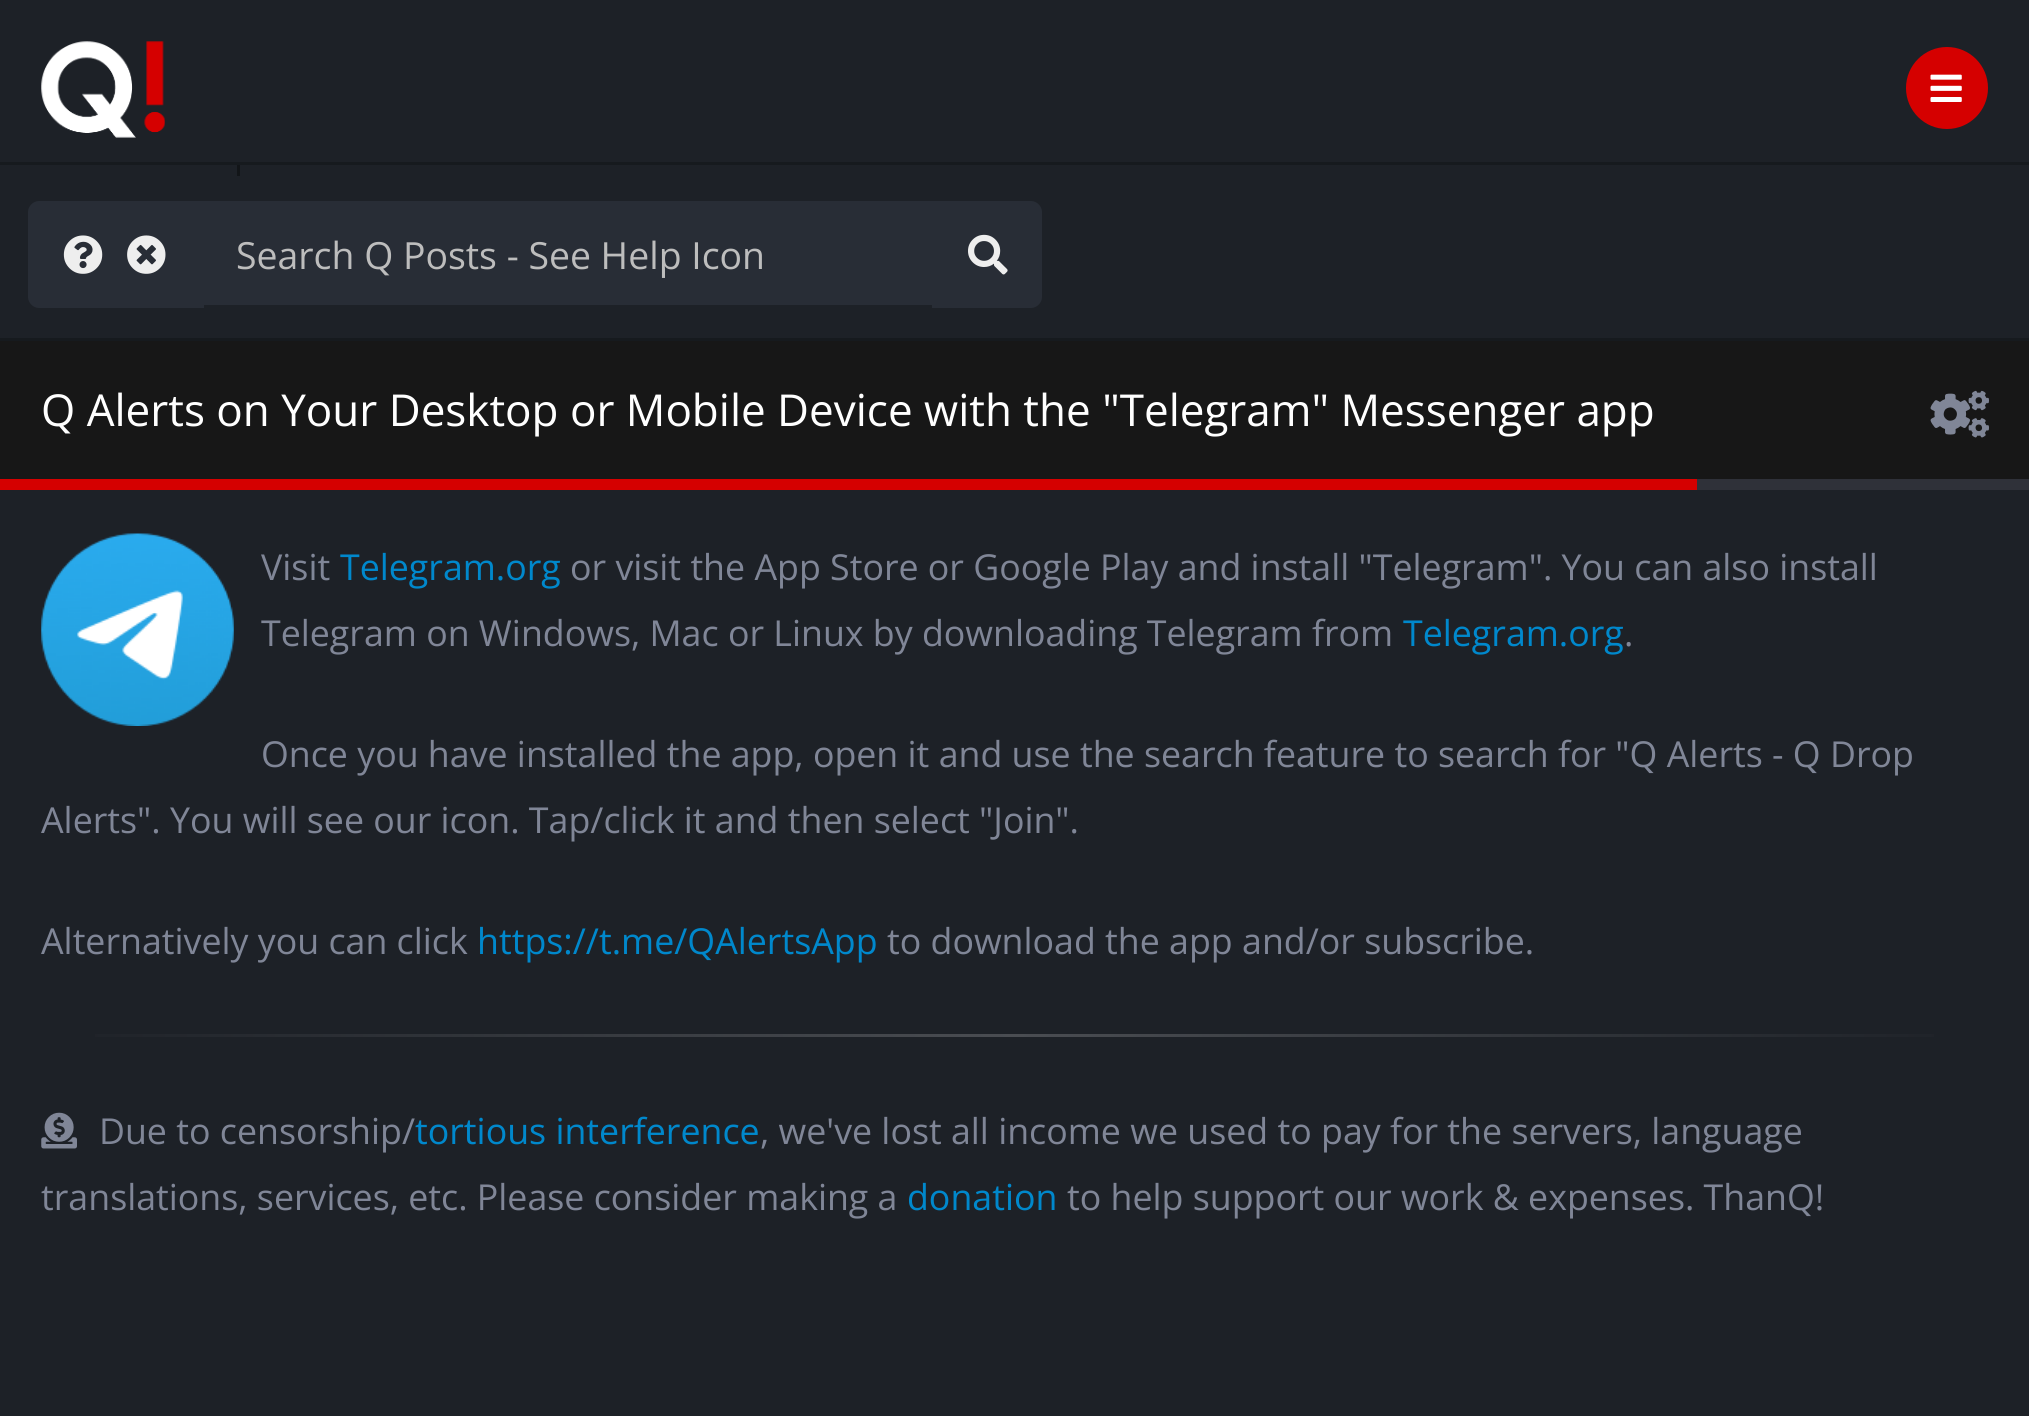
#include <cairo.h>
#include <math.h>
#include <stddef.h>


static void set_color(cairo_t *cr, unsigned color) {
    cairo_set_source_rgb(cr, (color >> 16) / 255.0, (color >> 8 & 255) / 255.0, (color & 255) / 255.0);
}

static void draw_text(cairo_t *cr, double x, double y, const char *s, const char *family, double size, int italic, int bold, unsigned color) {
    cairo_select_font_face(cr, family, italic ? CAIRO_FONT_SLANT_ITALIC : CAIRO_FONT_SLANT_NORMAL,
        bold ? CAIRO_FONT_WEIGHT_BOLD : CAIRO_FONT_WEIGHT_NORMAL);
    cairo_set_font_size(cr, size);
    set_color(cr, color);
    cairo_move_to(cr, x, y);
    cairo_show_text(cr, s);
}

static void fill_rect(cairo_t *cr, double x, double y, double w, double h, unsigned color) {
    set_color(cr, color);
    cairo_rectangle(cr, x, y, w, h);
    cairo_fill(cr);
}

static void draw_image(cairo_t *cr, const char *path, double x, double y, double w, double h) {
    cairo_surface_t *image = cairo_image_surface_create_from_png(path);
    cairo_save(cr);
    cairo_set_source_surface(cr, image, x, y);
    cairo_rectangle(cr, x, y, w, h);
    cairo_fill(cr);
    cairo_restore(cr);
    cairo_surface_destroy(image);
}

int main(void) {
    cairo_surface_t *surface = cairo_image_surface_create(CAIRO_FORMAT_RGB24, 2029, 1416);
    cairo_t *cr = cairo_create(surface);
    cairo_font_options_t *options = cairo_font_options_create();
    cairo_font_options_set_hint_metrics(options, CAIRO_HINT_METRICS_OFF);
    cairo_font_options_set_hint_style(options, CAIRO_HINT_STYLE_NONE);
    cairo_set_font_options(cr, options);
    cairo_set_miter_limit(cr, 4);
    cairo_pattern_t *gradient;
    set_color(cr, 0x1D2127);
    cairo_paint(cr);
    fill_rect(cr, 0, 338, 2029, 3, 0x161A1E);
    fill_rect(cr, 0, 162, 2029, 3, 0x161A1E);
    draw_image(cr, "assets/img1.png", 41, 41, 124, 97);
    set_color(cr, 0xD50000);
    cairo_arc(cr, 1947, 88, 41, 0, 2 * M_PI);
    cairo_fill(cr);
    draw_image(cr, "assets/img2.png", 1930, 74, 32, 28);
    fill_rect(cr, 237, 165, 3, 11, 0x121518);
    set_color(cr, 0x282D36);
    cairo_new_path(cr);
    cairo_move_to(cr, 39, 202.5);
    cairo_line_to(cr, 114.5, 202.5);
    cairo_line_to(cr, 114.5, 306.5);
    cairo_line_to(cr, 39, 306.5);
    cairo_curve_to(cr, 34, 306.5, 29.5, 302, 29.5, 297);
    cairo_line_to(cr, 29.5, 212);
    cairo_curve_to(cr, 29.5, 207, 34, 202.5, 39, 202.5);
    cairo_close_path(cr);
    cairo_fill_preserve(cr);
    cairo_set_line_width(cr, 3);
    cairo_stroke(cr);
    draw_image(cr, "assets/img3.png", 63, 235, 40, 39);
    cairo_rectangle(cr, 202.5, 202.5, 731, 101);
    cairo_fill_preserve(cr);
    cairo_stroke(cr);
    fill_rect(cr, 116, 201, 88, 107, 0x282D36);
    draw_image(cr, "assets/img4.png", 127, 235, 39, 39);
    draw_text(cr, 236, 269, "Search Q Posts - See Help Icon", "Open Sans", 37.4, 0, 0, 0xBDBDBD);
    set_color(cr, 0x282D36);
    cairo_new_path(cr);
    cairo_move_to(cr, 933.5, 202.5);
    cairo_line_to(cr, 1031, 202.5);
    cairo_curve_to(cr, 1036, 202.5, 1040.5, 207, 1040.5, 212);
    cairo_line_to(cr, 1040.5, 297);
    cairo_curve_to(cr, 1040.5, 302, 1036, 306.5, 1031, 306.5);
    cairo_line_to(cr, 933.5, 306.5);
    cairo_close_path(cr);
    cairo_fill_preserve(cr);
    cairo_stroke(cr);
    draw_image(cr, "assets/img5.png", 968, 234, 40, 41);
    set_color(cr, 0x2F3139);
    cairo_new_path(cr);
    cairo_move_to(cr, 0, 478);
    cairo_line_to(cr, 0, 490);
    cairo_line_to(cr, 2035, 490);
    cairo_line_to(cr, 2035, 347);
    cairo_line_to(cr, 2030, 347);
    cairo_line_to(cr, 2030, 478);
    cairo_close_path(cr);
    cairo_fill(cr);
    fill_rect(cr, 0, 341, 2029, 138, 0x171717);
    fill_rect(cr, 0, 479, 1697, 11, 0xD50000);
    draw_text(cr, 41, 426, "Q Alerts on Your Desktop or Mobile Device with the \"Telegram\" Messenger app", "Open Sans", 44, 0, 0, 0xFFFFFF);
    draw_image(cr, "assets/img6.png", 1930, 390, 59, 48);
    draw_image(cr, "assets/img7.png", 41, 533, 193, 193);
    draw_text(cr, 261, 580, "Visit", "Open Sans", 35.75, 0, 0, 0x808697);
    draw_text(cr, 340, 580, "Telegram.org", "Open Sans", 35.75, 0, 0, 0x0088CC);
    draw_text(cr, 570, 580, "or visit the App Store or Google Play and install \"Telegram\". You can also install", "Open Sans", 35.75, 0, 0, 0x808697);
    draw_text(cr, 261, 646, "Telegram on Windows, Mac or Linux by downloading Telegram from", "Open Sans", 35.75, 0, 0, 0x808697);
    draw_text(cr, 1403, 646, "Telegram.org", "Open Sans", 35.75, 0, 0, 0x0088CC);
    draw_text(cr, 1624, 646, ".", "Open Sans", 35.75, 0, 0, 0x808697);
    draw_text(cr, 261, 767, "Once you have installed the app, open it and use the search feature to search for \"Q Alerts - Q Drop", "Open Sans", 35.75, 0, 0, 0x808697);
    draw_text(cr, 41, 833, "Alerts\". You will see our icon. Tap/click it and then select \"Join\".", "Open Sans", 35.75, 0, 0, 0x808697);
    draw_text(cr, 41, 954, "Alternatively you can click", "Open Sans", 35.75, 0, 0, 0x808697);
    draw_text(cr, 477, 954, "https://t.me/QAlertsApp", "Open Sans", 35.75, 0, 0, 0x0088CC);
    draw_text(cr, 887, 954, "to download the app and/or subscribe.", "Open Sans", 35.75, 0, 0, 0x808697);
    gradient = cairo_pattern_create_linear(1988, 1035, 41, 1035);
    cairo_pattern_add_color_stop_rgba(gradient, 0, 0.114, 0.129, 0.153, 1);
    cairo_pattern_add_color_stop_rgba(gradient, 0.5, 0.29, 0.302, 0.322, 1);
    cairo_pattern_add_color_stop_rgba(gradient, 1, 0.114, 0.129, 0.153, 1);
    cairo_set_source(cr, gradient);
    cairo_pattern_destroy(gradient);
    cairo_rectangle(cr, 95, 1034, 1839, 3);
    cairo_fill(cr);
    draw_image(cr, "assets/img8.png", 41, 1112, 36, 37);
    draw_text(cr, 99, 1144, "Due to censorship/", "Open Sans", 35.75, 0, 0, 0x808697);
    draw_text(cr, 415, 1144, "tortious interference", "Open Sans", 35.75, 0, 0, 0x0088CC);
    draw_text(cr, 760, 1144, ", we've lost all income we used to pay for the servers, language", "Open Sans", 35.75, 0, 0, 0x808697);
    draw_text(cr, 41, 1210, "translations, services, etc. Please consider making a", "Open Sans", 35.75, 0, 0, 0x808697);
    draw_text(cr, 907, 1210, "donation", "Open Sans", 35.75, 0, 0, 0x0088CC);
    draw_text(cr, 1067, 1210, "to help support our work & expenses. ThanQ!", "Open Sans", 35.75, 0, 0, 0x808697);
    cairo_surface_write_to_png(surface, "output.png");
    cairo_font_options_destroy(options);
    cairo_destroy(cr);
    cairo_surface_destroy(surface);
    return 0;
}
